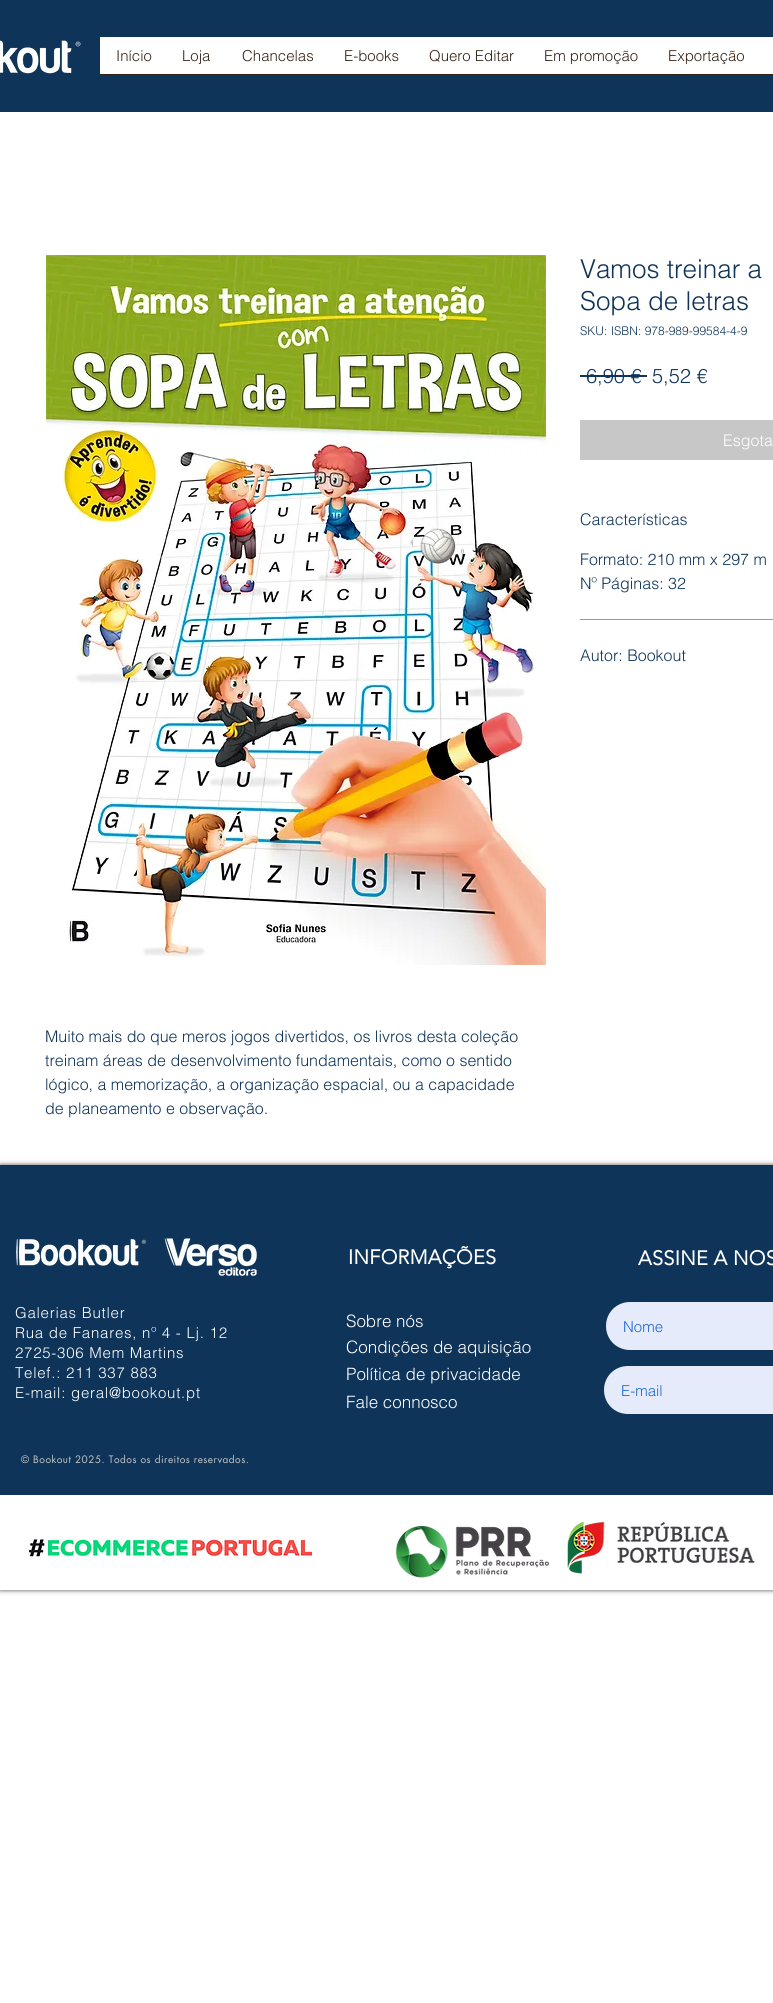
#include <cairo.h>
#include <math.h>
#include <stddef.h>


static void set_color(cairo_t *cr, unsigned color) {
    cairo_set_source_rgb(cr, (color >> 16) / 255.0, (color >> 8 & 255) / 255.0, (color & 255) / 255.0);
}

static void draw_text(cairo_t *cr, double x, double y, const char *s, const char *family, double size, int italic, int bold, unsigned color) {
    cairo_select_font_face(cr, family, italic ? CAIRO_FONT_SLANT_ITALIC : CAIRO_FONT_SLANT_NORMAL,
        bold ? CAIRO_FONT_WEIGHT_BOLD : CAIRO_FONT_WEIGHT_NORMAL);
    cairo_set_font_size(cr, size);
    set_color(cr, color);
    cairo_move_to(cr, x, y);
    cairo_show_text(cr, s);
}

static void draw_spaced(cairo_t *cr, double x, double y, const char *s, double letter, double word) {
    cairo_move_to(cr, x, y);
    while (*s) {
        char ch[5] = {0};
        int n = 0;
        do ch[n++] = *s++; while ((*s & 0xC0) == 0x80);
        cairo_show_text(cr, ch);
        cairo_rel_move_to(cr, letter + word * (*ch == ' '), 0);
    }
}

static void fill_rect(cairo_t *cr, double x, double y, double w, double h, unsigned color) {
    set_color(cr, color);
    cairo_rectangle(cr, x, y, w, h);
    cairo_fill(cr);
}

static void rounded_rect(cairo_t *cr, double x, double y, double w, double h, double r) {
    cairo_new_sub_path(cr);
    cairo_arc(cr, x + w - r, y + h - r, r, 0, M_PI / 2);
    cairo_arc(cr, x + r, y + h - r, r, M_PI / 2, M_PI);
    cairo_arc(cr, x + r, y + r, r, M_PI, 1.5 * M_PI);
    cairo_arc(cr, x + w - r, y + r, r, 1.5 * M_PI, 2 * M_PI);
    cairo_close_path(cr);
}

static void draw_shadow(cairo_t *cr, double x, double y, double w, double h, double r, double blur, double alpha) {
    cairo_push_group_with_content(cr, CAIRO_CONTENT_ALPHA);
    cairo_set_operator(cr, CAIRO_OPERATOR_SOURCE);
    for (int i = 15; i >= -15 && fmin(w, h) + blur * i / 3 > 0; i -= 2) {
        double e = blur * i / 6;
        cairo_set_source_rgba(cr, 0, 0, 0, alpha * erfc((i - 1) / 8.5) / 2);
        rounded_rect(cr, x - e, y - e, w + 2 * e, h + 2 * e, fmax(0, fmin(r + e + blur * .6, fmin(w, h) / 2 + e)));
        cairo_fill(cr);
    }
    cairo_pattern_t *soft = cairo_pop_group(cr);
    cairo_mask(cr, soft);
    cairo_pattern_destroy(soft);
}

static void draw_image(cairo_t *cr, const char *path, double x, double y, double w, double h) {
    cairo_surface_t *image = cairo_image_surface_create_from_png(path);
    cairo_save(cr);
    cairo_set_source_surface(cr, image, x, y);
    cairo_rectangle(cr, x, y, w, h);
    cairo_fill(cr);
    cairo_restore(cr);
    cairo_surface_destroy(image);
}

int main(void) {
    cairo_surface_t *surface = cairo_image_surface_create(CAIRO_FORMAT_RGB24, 773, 2003);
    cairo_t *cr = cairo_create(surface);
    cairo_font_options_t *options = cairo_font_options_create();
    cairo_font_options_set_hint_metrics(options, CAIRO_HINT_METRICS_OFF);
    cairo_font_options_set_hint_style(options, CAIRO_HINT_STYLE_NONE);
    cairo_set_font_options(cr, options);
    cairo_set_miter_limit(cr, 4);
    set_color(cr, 0xFFFFFF);
    cairo_paint(cr);
    fill_rect(cr, 0, 0, 773, 112, 0x0E345A);
    draw_image(cr, "assets/img1.png", 0, 40, 81, 34);
    fill_rect(cr, 100, 37, 673, 37, 0xFFFFFF);
    fill_rect(cr, 100, 74, 673, 1, 0x342216);
    draw_text(cr, 116, 61, "Início", "helvetica Light", 15, 0, 0, 0x342216);
    draw_text(cr, 182, 61, "Loja", "helvetica Light", 15, 0, 0, 0x342216);
    draw_text(cr, 242, 61, "Chancelas", "helvetica Light", 15, 0, 0, 0x342216);
    draw_text(cr, 344, 61, "E-books", "helvetica Light", 15, 0, 0, 0x342216);
    draw_text(cr, 429, 61, "Quero Editar", "helvetica Light", 15, 0, 0, 0x342216);
    draw_text(cr, 544, 61, "Em promoção", "helvetica Light", 15, 0, 0, 0x342216);
    draw_text(cr, 668, 61, "Exportação", "helvetica Light", 15, 0, 0, 0x342216);
    draw_text(cr, 580, 278, "Vamos treinar a", "helvetica Light", 26, 0, 0, 0x0E345A);
    draw_text(cr, 580, 310, "Sopa de letras", "helvetica Light", 26, 0, 0, 0x0E345A);
    draw_text(cr, 580, 335, "SKU: ISBN: 978-989-99584-4-9", "helvetica Light", 12, 0, 0, 0x0E345A);
    draw_text(cr, 586, 383, "6,90 €", "helvetica Light", 20, 0, 0, 0x0E345A);
    fill_rect(cr, 580, 375, 67, 2, 0x0E345A);
    draw_text(cr, 652, 383, "5,52 €", "helvetica Light", 20, 0, 0, 0x0E345A);
    fill_rect(cr, 580, 420, 193, 40, 0xC7C7C7);
    draw_text(cr, 723, 446, "Esgota", "helvetica Light", 16, 0, 0, 0xFFFFFF);
    fill_rect(cr, 580, 619, 193, 1, 0x899CAE);
    draw_text(cr, 580, 525, "Características", "helvetica Light", 16, 0, 0, 0x0E345A);
    draw_text(cr, 580, 565, "Formato: 210 mm x 297 m", "helvetica Light", 16, 0, 0, 0x0E345A);
    draw_text(cr, 580, 589, "Nº Páginas: 32", "helvetica Light", 16, 0, 0, 0x0E345A);
    draw_text(cr, 580, 661, "Autor: Bookout", "helvetica Light", 16, 0, 0, 0x0E345A);
    draw_image(cr, "assets/img2.png", 46, 255, 500, 710);
    draw_text(cr, 45, 1042, "Muito mais do que meros jogos divertidos, os livros desta coleção", "helvetica Light", 16, 0, 0, 0x0E345A);
    draw_text(cr, 45, 1066, "treinam áreas de desenvolvimento fundamentais, como o sentido", "helvetica Light", 16, 0, 0, 0x0E345A);
    draw_text(cr, 45, 1090, "lógico, a memorização, a organização espacial, ou a capacidade", "helvetica Light", 16, 0, 0, 0x0E345A);
    draw_text(cr, 45, 1114, "de planeamento e observação.", "helvetica Light", 16, 0, 0, 0x0E345A);
    cairo_save(cr);
    cairo_set_fill_rule(cr, CAIRO_FILL_RULE_EVEN_ODD);
    cairo_new_path(cr);
    cairo_move_to(cr, 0, 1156);
    cairo_line_to(cr, 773, 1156);
    cairo_line_to(cr, 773, 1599);
    cairo_line_to(cr, 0, 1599);
    cairo_close_path(cr);
    cairo_move_to(cr, 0, 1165);
    cairo_line_to(cr, 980, 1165);
    cairo_line_to(cr, 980, 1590);
    cairo_line_to(cr, 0, 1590);
    cairo_close_path(cr);
    cairo_clip(cr);
    set_color(cr, 0x000000);
    draw_shadow(cr, 0, 1165, 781, 425, 0, 2.5, 0.7);
    cairo_restore(cr);
    fill_rect(cr, 0, 1165, 773, 330, 0x0E345A);
    draw_image(cr, "assets/img3.png", 16, 1239, 131, 27);
    draw_image(cr, "assets/img4.png", 164, 1238, 93, 38);
    cairo_select_font_face(cr, "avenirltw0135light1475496", CAIRO_FONT_SLANT_NORMAL, CAIRO_FONT_WEIGHT_BOLD);
    cairo_set_font_size(cr, 20);
    set_color(cr, 0xFFFFFF);
    draw_spaced(cr, 348, 1264, "INFORMAÇÕES", 0.25, 0);
    draw_spaced(cr, 638, 1265, "ASSINE A NOS", 0.25, 0);
    cairo_select_font_face(cr, "helvetica Light", CAIRO_FONT_SLANT_NORMAL, CAIRO_FONT_WEIGHT_NORMAL);
    cairo_set_font_size(cr, 15);
    draw_spaced(cr, 15, 1318, "Galerias Butler", 0.75, 0);
    draw_spaced(cr, 15, 1338, "Rua de Fanares, nº 4 - Lj. 12", 0.75, 0);
    draw_spaced(cr, 15, 1358, "2725-306 Mem Martins", 0.75, 0);
    draw_spaced(cr, 15, 1378, "Telef.: 211 337 883", 0.75, 0);
    draw_spaced(cr, 15, 1398, "E-mail: geral@bookout.pt", 0.75, 0);
    draw_text(cr, 346, 1327, "Sobre nós", "helvetica Light", 17, 0, 0, 0xFFFFFF);
    set_color(cr, 0xE5EBFA);
    cairo_new_path(cr);
    cairo_move_to(cr, 630, 1302);
    cairo_line_to(cr, 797, 1302);
    cairo_line_to(cr, 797, 1350);
    cairo_line_to(cr, 630, 1350);
    cairo_curve_to(cr, 616.5, 1350, 606, 1339.5, 606, 1326);
    cairo_curve_to(cr, 606, 1312.5, 616.5, 1302, 630, 1302);
    cairo_close_path(cr);
    cairo_fill(cr);
    draw_text(cr, 623, 1332, "Nome", "helvetica Light", 15, 0, 0, 0x1D67CD);
    set_color(cr, 0xE5EBFA);
    cairo_new_path(cr);
    cairo_move_to(cr, 628, 1366);
    cairo_line_to(cr, 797, 1366);
    cairo_line_to(cr, 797, 1414);
    cairo_line_to(cr, 628, 1414);
    cairo_curve_to(cr, 614.5, 1414, 604, 1403.5, 604, 1390);
    cairo_curve_to(cr, 604, 1376.5, 614.5, 1366, 628, 1366);
    cairo_close_path(cr);
    cairo_fill(cr);
    draw_text(cr, 621, 1396, "E-mail", "helvetica Light", 15, 0, 0, 0x1D67CD);
    draw_text(cr, 346, 1353, "Condições de aquisição", "helvetica Light", 17, 0, 0, 0xFFFFFF);
    draw_text(cr, 346, 1380, "Política de privacidade", "helvetica Light", 17, 0, 0, 0xFFFFFF);
    draw_text(cr, 346, 1408, "Fale connosco", "helvetica Light", 17, 0, 0, 0xFFFFFF);
    cairo_select_font_face(cr, "futura", CAIRO_FONT_SLANT_NORMAL, CAIRO_FONT_WEIGHT_NORMAL);
    cairo_set_font_size(cr, 10);
    set_color(cr, 0xC7C7C7);
    draw_spaced(cr, 21, 1463, "© Bookout 2025. Todos os direitos reservados.", 0.5, 0);
    draw_image(cr, "assets/img5.png", 28, 1537, 285, 22);
    draw_image(cr, "assets/img6.png", 395, 1520, 360, 59);
    cairo_surface_write_to_png(surface, "output.png");
    cairo_font_options_destroy(options);
    cairo_destroy(cr);
    cairo_surface_destroy(surface);
    return 0;
}
